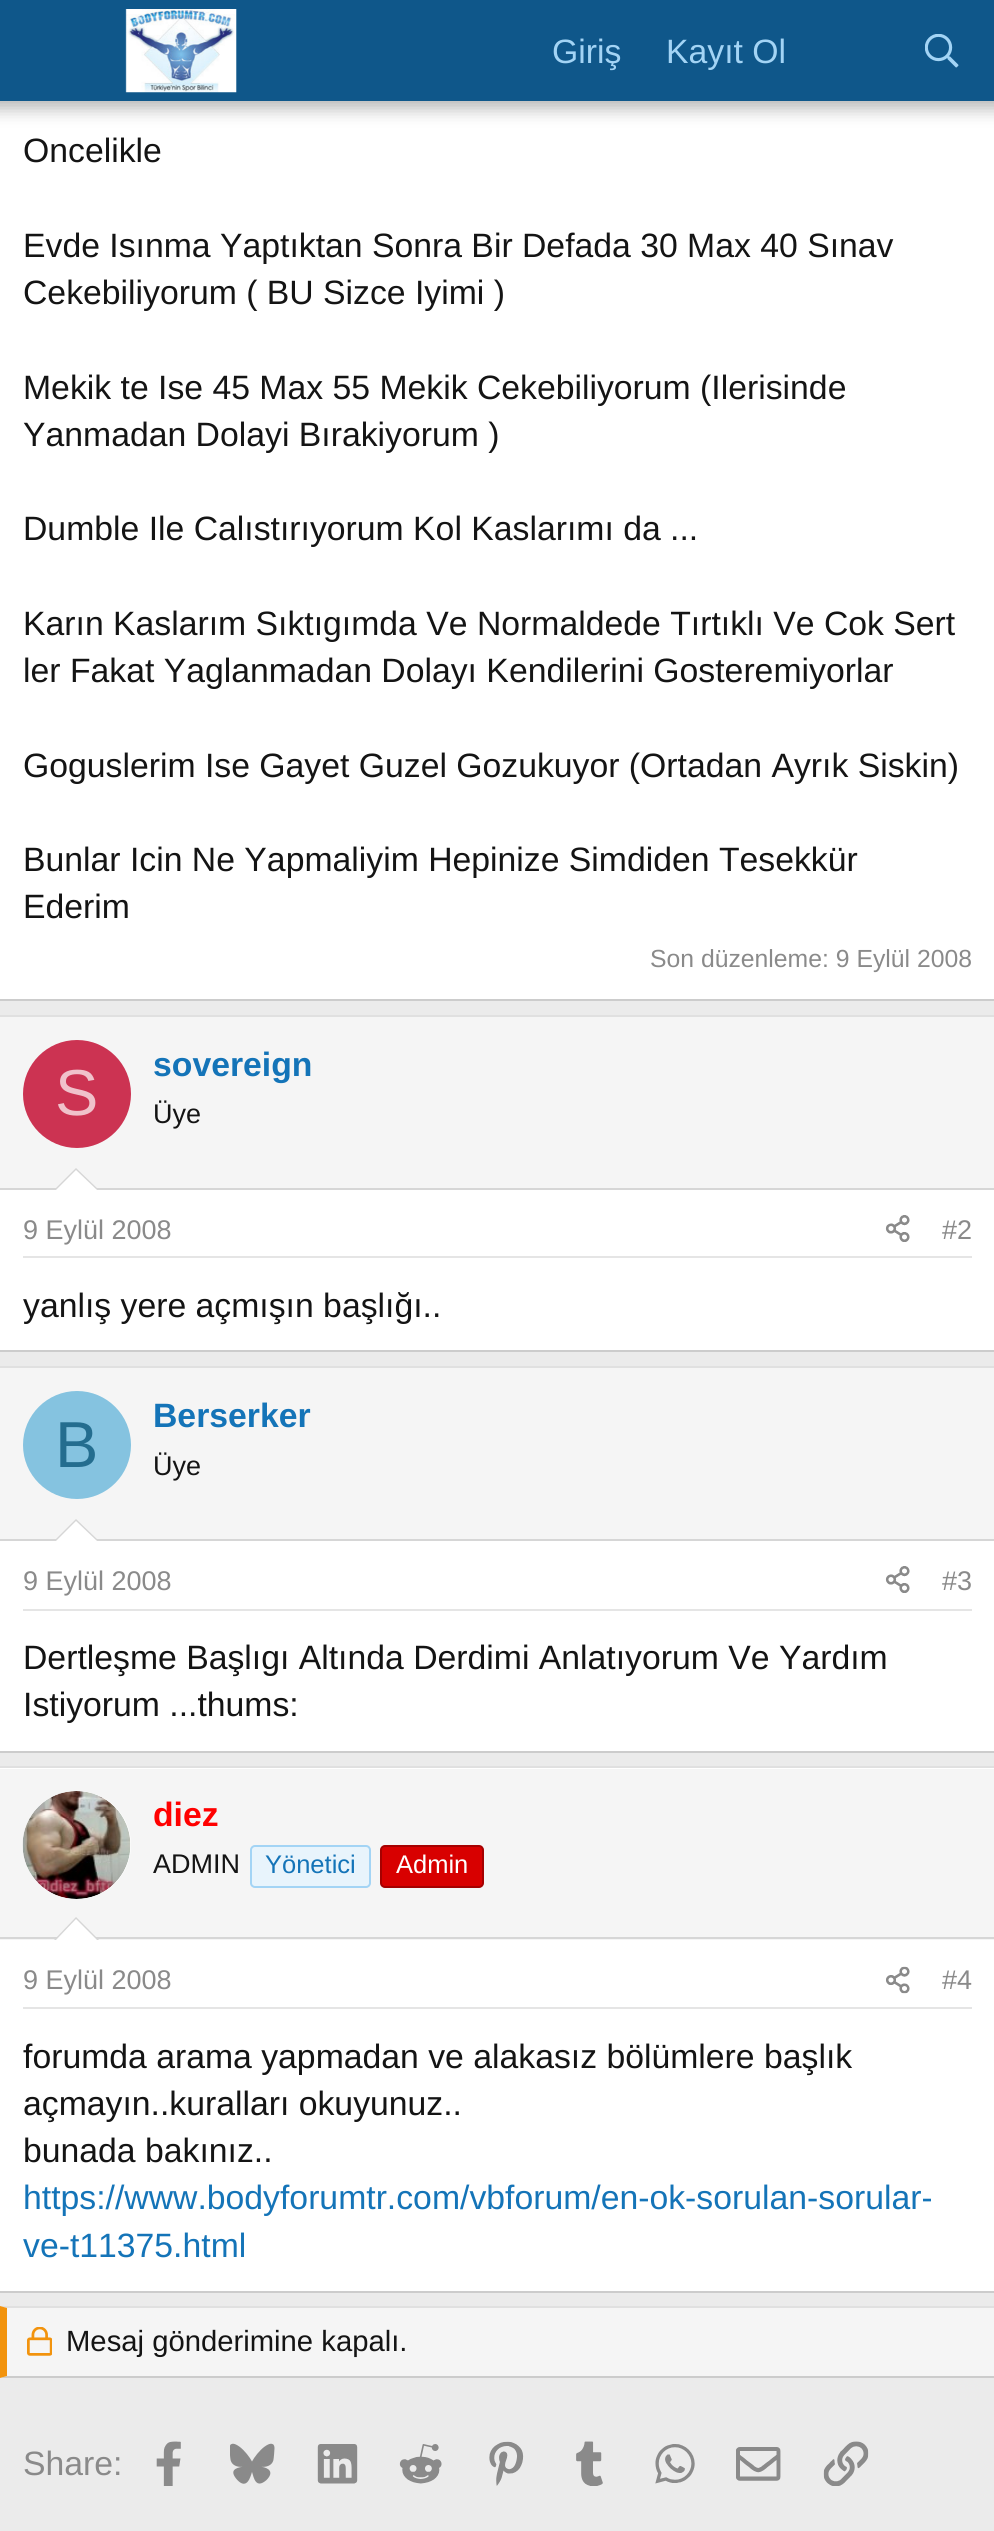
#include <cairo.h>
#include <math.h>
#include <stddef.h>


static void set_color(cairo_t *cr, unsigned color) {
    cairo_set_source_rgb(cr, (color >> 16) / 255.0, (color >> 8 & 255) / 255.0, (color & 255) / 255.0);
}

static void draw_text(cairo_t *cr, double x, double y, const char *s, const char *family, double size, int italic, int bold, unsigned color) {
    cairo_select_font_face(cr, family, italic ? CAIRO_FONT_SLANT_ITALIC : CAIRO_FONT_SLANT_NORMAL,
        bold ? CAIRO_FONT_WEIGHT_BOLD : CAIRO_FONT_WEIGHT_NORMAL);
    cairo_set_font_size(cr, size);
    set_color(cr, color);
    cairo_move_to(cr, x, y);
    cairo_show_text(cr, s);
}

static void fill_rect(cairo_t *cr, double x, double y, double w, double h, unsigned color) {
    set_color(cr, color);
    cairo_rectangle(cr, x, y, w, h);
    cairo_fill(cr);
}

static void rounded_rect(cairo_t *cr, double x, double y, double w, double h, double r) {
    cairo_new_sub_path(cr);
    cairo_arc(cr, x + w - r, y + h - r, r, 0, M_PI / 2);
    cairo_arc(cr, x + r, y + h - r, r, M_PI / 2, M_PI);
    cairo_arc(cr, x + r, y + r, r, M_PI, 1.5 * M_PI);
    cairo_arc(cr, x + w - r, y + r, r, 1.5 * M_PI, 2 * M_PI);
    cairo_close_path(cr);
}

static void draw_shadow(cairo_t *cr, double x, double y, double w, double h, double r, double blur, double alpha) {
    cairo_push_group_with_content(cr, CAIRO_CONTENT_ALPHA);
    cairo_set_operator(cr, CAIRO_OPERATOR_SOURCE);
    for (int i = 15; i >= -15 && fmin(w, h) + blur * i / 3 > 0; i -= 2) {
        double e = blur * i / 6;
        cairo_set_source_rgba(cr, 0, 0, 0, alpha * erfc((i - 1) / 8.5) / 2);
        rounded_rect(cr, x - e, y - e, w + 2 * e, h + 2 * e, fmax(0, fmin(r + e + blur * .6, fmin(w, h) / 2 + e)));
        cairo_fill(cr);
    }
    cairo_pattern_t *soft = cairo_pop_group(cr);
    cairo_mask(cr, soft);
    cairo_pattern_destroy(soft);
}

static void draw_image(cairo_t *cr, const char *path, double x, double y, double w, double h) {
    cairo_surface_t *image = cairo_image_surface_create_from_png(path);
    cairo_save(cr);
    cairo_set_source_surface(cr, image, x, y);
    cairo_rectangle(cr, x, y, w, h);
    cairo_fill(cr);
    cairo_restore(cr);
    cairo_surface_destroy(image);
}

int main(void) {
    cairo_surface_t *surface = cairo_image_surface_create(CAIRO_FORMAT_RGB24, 994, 2531);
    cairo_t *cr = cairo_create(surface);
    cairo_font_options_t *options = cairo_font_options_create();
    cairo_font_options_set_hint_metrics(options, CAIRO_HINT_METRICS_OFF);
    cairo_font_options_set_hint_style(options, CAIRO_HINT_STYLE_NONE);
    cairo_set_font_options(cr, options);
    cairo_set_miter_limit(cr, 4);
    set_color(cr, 0xEBEBEB);
    cairo_paint(cr);
    fill_rect(cr, 0, 101, 994, 898, 0xFFFFFF);
    set_color(cr, 0x000000);
    draw_shadow(cr, -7, -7, 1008, 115, 0, 9, 0.3);
    fill_rect(cr, 0, 0, 994, 101, 0x0F578A);
    draw_image(cr, "assets/img1.png", 125, 9, 112, 84);
    draw_text(cr, 552, 63, "Giriş", "Liberation Sans", 33.75, 0, 0, 0xA3D4F5);
    draw_text(cr, 666, 63, "Kayıt Ol", "Liberation Sans", 33.75, 0, 0, 0xA3D4F5);
    draw_image(cr, "assets/img2.png", 925, 34, 34, 34);
    fill_rect(cr, 0, 999, 994, 2, 0xCCCCCC);
    draw_text(cr, 23, 162, "Oncelikle", "Liberation Sans", 33.75, 0, 0, 0x141414);
    draw_text(cr, 23, 257, "Evde Isınma Yaptıktan Sonra Bir Defada 30 Max 40 Sınav", "Liberation Sans", 33.75, 0, 0, 0x141414);
    draw_text(cr, 23, 304, "Cekebiliyorum ( BU Sizce Iyimi )", "Liberation Sans", 33.75, 0, 0, 0x141414);
    draw_text(cr, 23, 399, "Mekik te Ise 45 Max 55 Mekik Cekebiliyorum (Ilerisinde", "Liberation Sans", 33.75, 0, 0, 0x141414);
    draw_text(cr, 23, 446, "Yanmadan Dolayi Bırakiyorum )", "Liberation Sans", 33.75, 0, 0, 0x141414);
    draw_text(cr, 23, 540, "Dumble Ile Calıstırıyorum Kol Kaslarımı da ...", "Liberation Sans", 33.75, 0, 0, 0x141414);
    draw_text(cr, 23, 635, "Karın Kaslarım Sıktıgımda Ve Normaldede Tırtıklı Ve Cok Sert", "Liberation Sans", 33.75, 0, 0, 0x141414);
    draw_text(cr, 23, 682, "ler Fakat Yaglanmadan Dolayı Kendilerini Gosteremiyorlar", "Liberation Sans", 33.75, 0, 0, 0x141414);
    draw_text(cr, 23, 777, "Goguslerim Ise Gayet Guzel Gozukuyor (Ortadan Ayrık Siskin)", "Liberation Sans", 33.75, 0, 0, 0x141414);
    draw_text(cr, 23, 871, "Bunlar Icin Ne Yapmaliyim Hepinize Simdiden Tesekkür", "Liberation Sans", 33.75, 0, 0, 0x141414);
    draw_text(cr, 23, 918, "Ederim", "Liberation Sans", 33.75, 0, 0, 0x141414);
    draw_text(cr, 650, 967, "Son düzenleme: 9 Eylül 2008", "Liberation Sans", 24.75, 0, 0, 0x8A8A8A);
    fill_rect(cr, 0, 1190, 994, 160, 0xFFFFFF);
    fill_rect(cr, 0, 1015, 994, 2, 0xE0E0E0);
    fill_rect(cr, 0, 1350, 994, 2, 0xCCCCCC);
    fill_rect(cr, 0, 1017, 994, 171, 0xF5F5F5);
    fill_rect(cr, 0, 1188, 994, 2, 0xD6D6D6);
    set_color(cr, 0xCC3352);
    cairo_new_path(cr);
    cairo_arc(cr, 77, 1094, 54, 0, 2 * M_PI);
    cairo_fill(cr);
    draw_text(cr, 55, 1115, "S", "Liberation Sans", 65, 0, 0, 0xF0C2CB);
    draw_text(cr, 153, 1076, "sovereign", "Liberation Sans", 33.75, 0, 1, 0x1474B8);
    draw_text(cr, 153, 1123, "Üye", "Liberation Sans", 27, 0, 0, 0x141414);
    set_color(cr, 0xD6D6D6);
    cairo_new_path(cr);
    cairo_move_to(cr, 99, 1190);
    cairo_line_to(cr, 54, 1190);
    cairo_line_to(cr, 76, 1168);
    cairo_close_path(cr);
    cairo_fill(cr);
    set_color(cr, 0xFFFFFF);
    cairo_new_path(cr);
    cairo_move_to(cr, 97, 1190);
    cairo_line_to(cr, 56, 1190);
    cairo_line_to(cr, 76, 1170);
    cairo_close_path(cr);
    cairo_fill(cr);
    fill_rect(cr, 23, 1256, 949, 2, 0xE5E5E5);
    draw_text(cr, 23, 1239, "9 Eylül 2008", "Liberation Sans", 27, 0, 0, 0x8A8A8A);
    draw_image(cr, "assets/img3.png", 885, 1215, 25, 27);
    draw_text(cr, 942, 1239, "#2", "Liberation Sans", 27, 0, 0, 0x8A8A8A);
    draw_text(cr, 23, 1317, "yanlış yere açmışın başlığı..", "Liberation Sans", 33.75, 0, 0, 0x141414);
    fill_rect(cr, 0, 1541, 994, 210, 0xFFFFFF);
    fill_rect(cr, 0, 1366, 994, 2, 0xE0E0E0);
    fill_rect(cr, 0, 1751, 994, 2, 0xCCCCCC);
    fill_rect(cr, 0, 1368, 994, 171, 0xF5F5F5);
    fill_rect(cr, 0, 1539, 994, 2, 0xD6D6D6);
    set_color(cr, 0x85C3E0);
    cairo_new_path(cr);
    cairo_arc(cr, 77, 1445, 54, 0, 2 * M_PI);
    cairo_fill(cr);
    draw_text(cr, 55, 1467, "B", "Liberation Sans", 65, 0, 0, 0x246D8F);
    draw_text(cr, 153, 1427, "Berserker", "Liberation Sans", 33.75, 0, 1, 0x1474B8);
    draw_text(cr, 153, 1475, "Üye", "Liberation Sans", 27, 0, 0, 0x141414);
    set_color(cr, 0xD6D6D6);
    cairo_new_path(cr);
    cairo_move_to(cr, 99, 1541);
    cairo_line_to(cr, 54, 1541);
    cairo_line_to(cr, 76, 1519);
    cairo_close_path(cr);
    cairo_fill(cr);
    set_color(cr, 0xFFFFFF);
    cairo_new_path(cr);
    cairo_move_to(cr, 97, 1541);
    cairo_line_to(cr, 56, 1541);
    cairo_line_to(cr, 76, 1521);
    cairo_close_path(cr);
    cairo_fill(cr);
    fill_rect(cr, 23, 1609, 949, 2, 0xE5E5E5);
    draw_text(cr, 23, 1590, "9 Eylül 2008", "Liberation Sans", 27, 0, 0, 0x8A8A8A);
    draw_image(cr, "assets/img4.png", 885, 1566, 25, 27);
    draw_text(cr, 942, 1590, "#3", "Liberation Sans", 27, 0, 0, 0x8A8A8A);
    draw_text(cr, 23, 1669, "Dertleşme Başlıgı Altında Derdimi Anlatıyorum Ve Yardım", "Liberation Sans", 33.75, 0, 0, 0x141414);
    draw_text(cr, 23, 1716, "Istiyorum ...thums:", "Liberation Sans", 33.75, 0, 0, 0x141414);
    fill_rect(cr, 0, 1768, 994, 523, 0xFFFFFF);
    fill_rect(cr, 0, 1766, 994, 2, 0xE0E0E0);
    fill_rect(cr, 0, 2291, 994, 2, 0xCCCCCC);
    fill_rect(cr, 0, 1769, 994, 171, 0xF5F5F5);
    fill_rect(cr, 0, 1937, 994, 2, 0xD6D6D6);
    set_color(cr, 0xFFFFFF);
    cairo_new_path(cr);
    cairo_arc(cr, 77, 1845, 54, 0, 2 * M_PI);
    cairo_fill(cr);
    draw_image(cr, "assets/img5.png", 22, 1791, 109, 108);
    draw_text(cr, 153, 1826, "diez", "Liberation Sans", 33.75, 0, 1, 0xFF0000);
    draw_text(cr, 153, 1873, "ADMIN", "Liberation Sans", 27, 0, 0, 0x141414);
    set_color(cr, 0xE8F4FC);
    rounded_rect(cr, 251, 1846, 119, 41, 4);
    cairo_fill_preserve(cr);
    set_color(cr, 0xA3D4F5);
    cairo_stroke(cr);
    draw_text(cr, 265, 1873, "Yönetici", "Liberation Sans", 25.5, 0, 0, 0x1474B8);
    set_color(cr, 0xD80000);
    rounded_rect(cr, 381, 1846, 102, 41, 4);
    cairo_fill_preserve(cr);
    set_color(cr, 0xA50000);
    cairo_stroke(cr);
    draw_text(cr, 396, 1873, "Admin", "Liberation Sans", 25.5, 0, 0, 0xFFFFFF);
    set_color(cr, 0xD6D6D6);
    cairo_new_path(cr);
    cairo_move_to(cr, 99, 1940);
    cairo_line_to(cr, 54, 1940);
    cairo_line_to(cr, 76, 1917);
    cairo_close_path(cr);
    cairo_fill(cr);
    set_color(cr, 0xFFFFFF);
    cairo_new_path(cr);
    cairo_move_to(cr, 97, 1940);
    cairo_line_to(cr, 56, 1940);
    cairo_line_to(cr, 76, 1919);
    cairo_close_path(cr);
    cairo_fill(cr);
    fill_rect(cr, 23, 2007, 949, 2, 0xE5E5E5);
    draw_text(cr, 23, 1989, "9 Eylül 2008", "Liberation Sans", 27, 0, 0, 0x8A8A8A);
    draw_image(cr, "assets/img6.png", 886, 1966, 24, 28);
    draw_text(cr, 942, 1989, "#4", "Liberation Sans", 27, 0, 0, 0x8A8A8A);
    draw_text(cr, 23, 2068, "forumda arama yapmadan ve alakasız bölümlere başlık", "Liberation Sans", 33.75, 0, 0, 0x141414);
    draw_text(cr, 23, 2115, "açmayın..kuralları okuyunuz..", "Liberation Sans", 33.75, 0, 0, 0x141414);
    draw_text(cr, 23, 2162, "bunada bakınız..", "Liberation Sans", 33.75, 0, 0, 0x141414);
    draw_text(cr, 23, 2209, "https://www.bodyforumtr.com/vbforum/en-ok-sorulan-sorular-", "Liberation Sans", 33.75, 0, 0, 0x1474B8);
    draw_text(cr, 23, 2257, "ve-t11375.html", "Liberation Sans", 33.75, 0, 0, 0x1474B8);
    fill_rect(cr, 0, 2306, 994, 72, 0xF5F5F5);
    set_color(cr, 0xE0E0E0);
    cairo_new_path(cr);
    cairo_move_to(cr, 0, 2306);
    cairo_line_to(cr, 994, 2306);
    cairo_line_to(cr, 994, 2308);
    cairo_line_to(cr, 7, 2308);
    cairo_close_path(cr);
    cairo_fill(cr);
    set_color(cr, 0xCCCCCC);
    cairo_new_path(cr);
    cairo_move_to(cr, 994, 2378);
    cairo_line_to(cr, 0, 2378);
    cairo_line_to(cr, 7, 2376);
    cairo_line_to(cr, 994, 2376);
    cairo_close_path(cr);
    cairo_fill(cr);
    set_color(cr, 0xF2930D);
    cairo_new_path(cr);
    cairo_move_to(cr, 0, 2378);
    cairo_line_to(cr, 0, 2306);
    cairo_line_to(cr, 7, 2308);
    cairo_line_to(cr, 7, 2376);
    cairo_close_path(cr);
    cairo_fill(cr);
    draw_image(cr, "assets/img7.png", 27, 2327, 25, 29);
    draw_text(cr, 66, 2351, "Mesaj gönderimine kapalı.", "Liberation Sans", 29.25, 0, 0, 0x141414);
    draw_text(cr, 23, 2475, "Share:", "Liberation Sans", 33.75, 0, 0, 0x8A8A8A);
    draw_image(cr, "assets/img8.png", 156, 2441, 25, 45);
    draw_image(cr, "assets/img9.png", 230, 2443, 45, 41);
    draw_image(cr, "assets/img10.png", 317, 2444, 41, 40);
    draw_image(cr, "assets/img11.png", 399, 2444, 43, 40);
    draw_image(cr, "assets/img12.png", 489, 2441, 35, 45);
    draw_image(cr, "assets/img13.png", 576, 2441, 27, 45);
    draw_image(cr, "assets/img14.png", 655, 2444, 40, 40);
    draw_image(cr, "assets/img15.png", 736, 2447, 45, 34);
    draw_image(cr, "assets/img16.png", 823, 2441, 46, 45);
    cairo_surface_write_to_png(surface, "output.png");
    cairo_font_options_destroy(options);
    cairo_destroy(cr);
    cairo_surface_destroy(surface);
    return 0;
}
